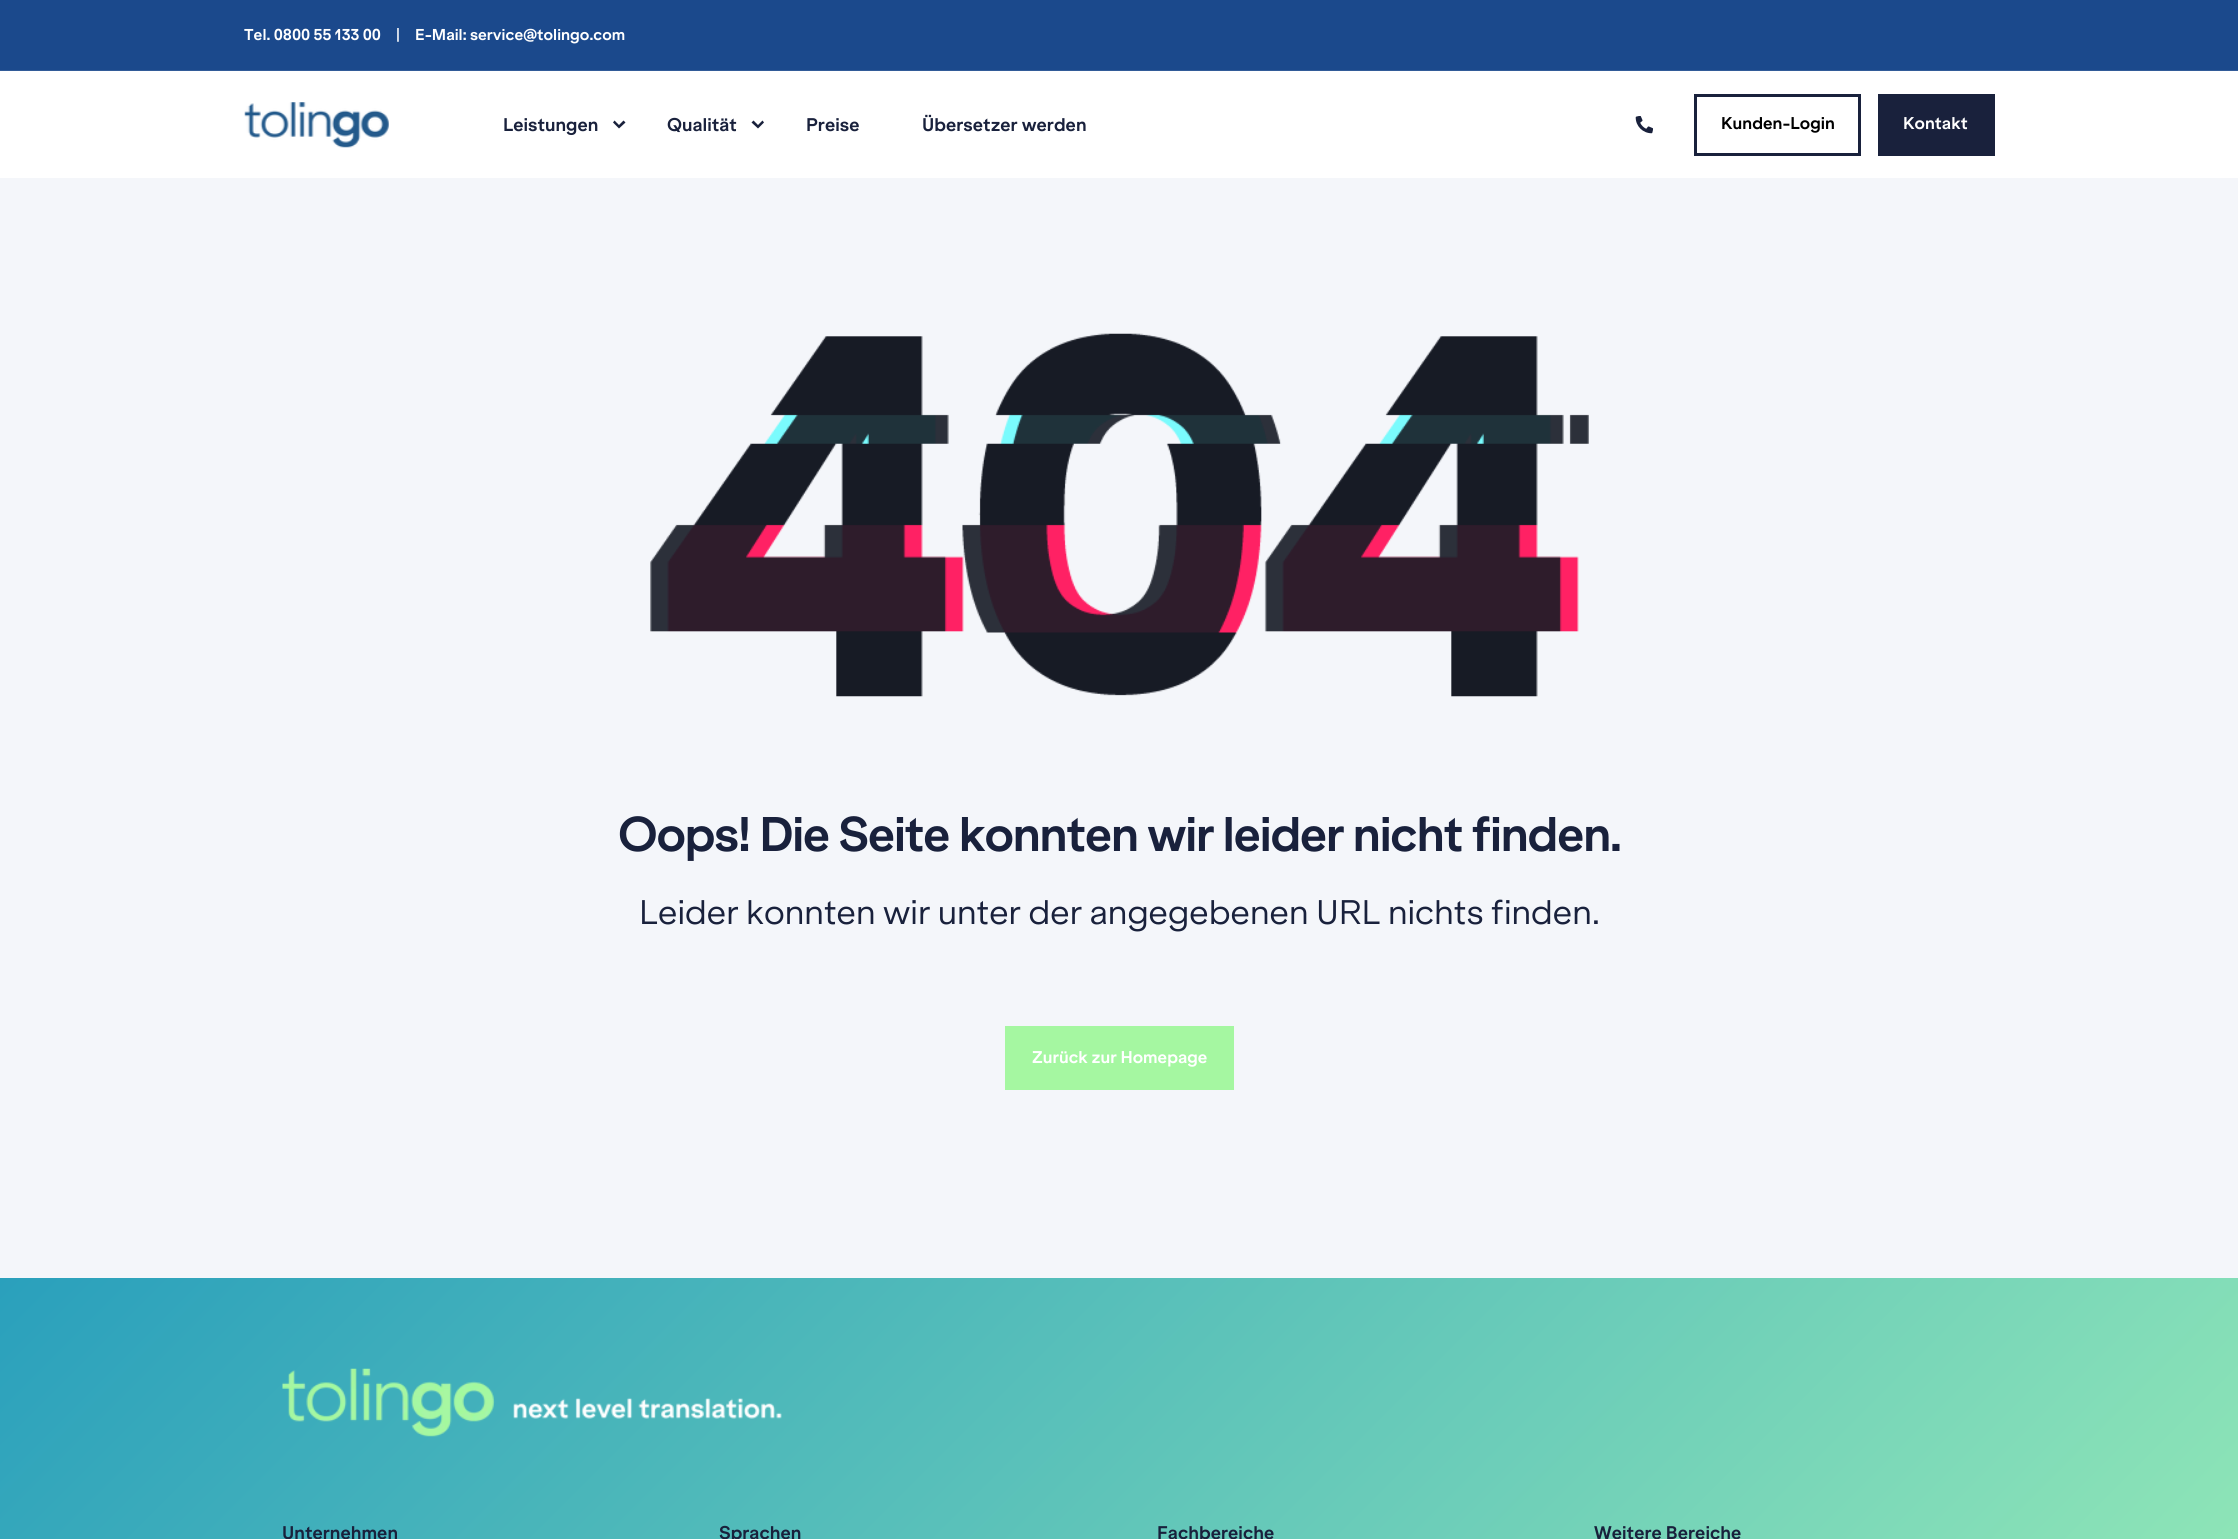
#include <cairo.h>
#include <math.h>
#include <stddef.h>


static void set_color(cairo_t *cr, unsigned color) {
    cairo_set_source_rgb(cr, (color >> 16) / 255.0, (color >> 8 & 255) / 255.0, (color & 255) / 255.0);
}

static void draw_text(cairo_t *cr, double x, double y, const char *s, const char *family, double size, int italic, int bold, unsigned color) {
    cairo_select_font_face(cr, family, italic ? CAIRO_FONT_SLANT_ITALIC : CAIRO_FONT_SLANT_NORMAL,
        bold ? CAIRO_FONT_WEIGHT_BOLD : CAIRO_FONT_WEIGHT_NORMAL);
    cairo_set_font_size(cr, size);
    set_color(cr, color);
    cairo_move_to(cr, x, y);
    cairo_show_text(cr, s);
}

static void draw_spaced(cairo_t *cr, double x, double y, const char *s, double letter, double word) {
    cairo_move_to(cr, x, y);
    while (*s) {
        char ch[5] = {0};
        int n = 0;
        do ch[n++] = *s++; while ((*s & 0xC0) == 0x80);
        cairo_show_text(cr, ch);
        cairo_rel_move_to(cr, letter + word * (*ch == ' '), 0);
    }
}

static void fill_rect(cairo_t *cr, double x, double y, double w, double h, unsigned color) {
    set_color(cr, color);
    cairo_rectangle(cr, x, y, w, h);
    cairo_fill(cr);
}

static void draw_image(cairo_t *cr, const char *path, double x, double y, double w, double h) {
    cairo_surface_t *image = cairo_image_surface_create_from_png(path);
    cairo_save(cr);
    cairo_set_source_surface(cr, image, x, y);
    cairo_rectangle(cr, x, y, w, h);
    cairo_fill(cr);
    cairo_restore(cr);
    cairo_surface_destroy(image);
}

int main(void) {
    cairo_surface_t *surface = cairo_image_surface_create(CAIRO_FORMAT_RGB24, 2238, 1539);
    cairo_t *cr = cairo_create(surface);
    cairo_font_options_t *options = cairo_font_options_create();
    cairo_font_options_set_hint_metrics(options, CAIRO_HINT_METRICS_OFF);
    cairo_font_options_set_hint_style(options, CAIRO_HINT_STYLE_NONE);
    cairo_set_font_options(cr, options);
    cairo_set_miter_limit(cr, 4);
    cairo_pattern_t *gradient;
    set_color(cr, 0xFFFFFF);
    cairo_paint(cr);
    fill_rect(cr, 0, 0, 2238, 70, 0x1B498C);
    fill_rect(cr, 0, 70, 2238, 1, 0x325B98);
    draw_text(cr, 244, 40, "Tel. 0800 55 133 00", "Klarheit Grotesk", 15, 0, 1, 0xFFFFFF);
    draw_text(cr, 396, 40, "|", "Klarheit Grotesk", 15, 0, 1, 0xFFFFFF);
    draw_text(cr, 415, 40, "E-Mail: service@tolingo.com", "Klarheit Grotesk", 15, 0, 1, 0xFFFFFF);
    draw_image(cr, "assets/img1.png", 244, 102, 145, 46);
    draw_text(cr, 503, 131, "Leistungen", "Klarheit Grotesk", 17.5, 0, 1, 0x19213C);
    cairo_new_path(cr);
    cairo_move_to(cr, 625.5, 122.5);
    cairo_line_to(cr, 623.5, 120.5);
    cairo_line_to(cr, 619, 125);
    cairo_line_to(cr, 614.5, 120.5);
    cairo_line_to(cr, 613, 122.5);
    cairo_line_to(cr, 619, 128.5);
    cairo_close_path(cr);
    cairo_fill(cr);
    draw_text(cr, 667, 131, "Qualität", "Klarheit Grotesk", 17.5, 0, 1, 0x19213C);
    cairo_new_path(cr);
    cairo_move_to(cr, 764, 122.5);
    cairo_line_to(cr, 762.5, 120.5);
    cairo_line_to(cr, 758, 125);
    cairo_line_to(cr, 753.5, 120.5);
    cairo_line_to(cr, 751.5, 122.5);
    cairo_line_to(cr, 758, 128.5);
    cairo_close_path(cr);
    cairo_fill(cr);
    draw_text(cr, 806, 131, "Preise", "Klarheit Grotesk", 17.5, 0, 1, 0x19213C);
    draw_text(cr, 922, 131, "Übersetzer werden", "Klarheit Grotesk", 17.5, 0, 1, 0x19213C);
    draw_image(cr, "assets/img2.png", 1635, 116, 18, 18);
    cairo_rectangle(cr, 1695.5, 95.5, 164, 59);
    cairo_set_line_width(cr, 3);
    cairo_stroke(cr);
    draw_text(cr, 1721, 129, "Kunden-Login", "Klarheit Grotesk", 16.25, 0, 1, 0x000000);
    fill_rect(cr, 1878, 94, 117, 62, 0x19213C);
    draw_text(cr, 1903, 129, "Kontakt", "Klarheit Grotesk", 16.25, 0, 1, 0xFFFFFF);
    fill_rect(cr, 0, 178, 2238, 1100, 0xF4F6FA);
    draw_image(cr, "assets/img3.png", 650, 333, 939, 364);
    cairo_set_font_size(cr, 46.25);
    set_color(cr, 0x19213C);
    draw_spaced(cr, 618, 851, "Oops! Die Seite konnten wir leider nicht finden.", -1.25, 0);
    draw_text(cr, 639, 924, "Leider konnten wir unter der angegebenen URL nichts finden.", "Klarheit Grotesk", 32.5, 0, 0, 0x19213C);
    fill_rect(cr, 1005, 1026, 229, 64, 0xA5F7A1);
    draw_text(cr, 1032, 1063, "Zurück zur Homepage", "Klarheit Grotesk", 16.25, 0, 1, 0xFFFFFF);
    gradient = cairo_pattern_create_linear(378, 899, 1861, 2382);
    cairo_pattern_add_color_stop_rgba(gradient, 0, 0.165, 0.627, 0.737, 1);
    cairo_pattern_add_color_stop_rgba(gradient, 1, 0.627, 0.945, 0.714, 1);
    cairo_set_source(cr, gradient);
    cairo_pattern_destroy(gradient);
    cairo_rectangle(cr, 0, 1278, 2238, 261);
    cairo_fill(cr);
    draw_image(cr, "assets/img4.png", 282, 1368, 500, 69);
    draw_text(cr, 282, 1539, "Unternehmen", "Klarheit Grotesk", 17.5, 0, 1, 0x19213C);
    draw_text(cr, 719, 1539, "Sprachen", "Klarheit Grotesk", 17.5, 0, 1, 0x19213C);
    draw_text(cr, 1157, 1539, "Fachbereiche", "Klarheit Grotesk", 17.5, 0, 1, 0x19213C);
    draw_text(cr, 1594, 1539, "Weitere Bereiche", "Klarheit Grotesk", 17.5, 0, 1, 0x19213C);
    cairo_surface_write_to_png(surface, "output.png");
    cairo_font_options_destroy(options);
    cairo_destroy(cr);
    cairo_surface_destroy(surface);
    return 0;
}
